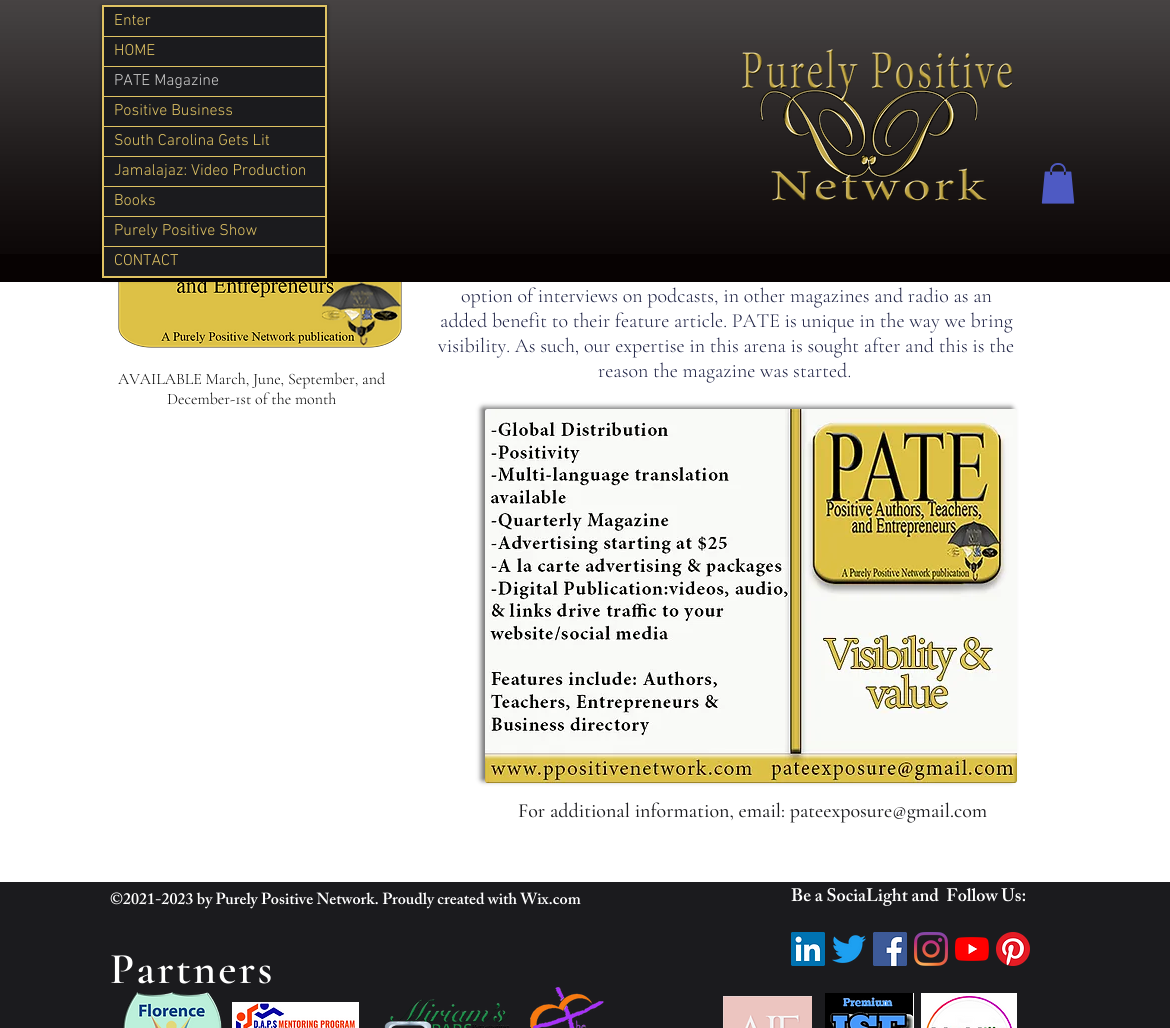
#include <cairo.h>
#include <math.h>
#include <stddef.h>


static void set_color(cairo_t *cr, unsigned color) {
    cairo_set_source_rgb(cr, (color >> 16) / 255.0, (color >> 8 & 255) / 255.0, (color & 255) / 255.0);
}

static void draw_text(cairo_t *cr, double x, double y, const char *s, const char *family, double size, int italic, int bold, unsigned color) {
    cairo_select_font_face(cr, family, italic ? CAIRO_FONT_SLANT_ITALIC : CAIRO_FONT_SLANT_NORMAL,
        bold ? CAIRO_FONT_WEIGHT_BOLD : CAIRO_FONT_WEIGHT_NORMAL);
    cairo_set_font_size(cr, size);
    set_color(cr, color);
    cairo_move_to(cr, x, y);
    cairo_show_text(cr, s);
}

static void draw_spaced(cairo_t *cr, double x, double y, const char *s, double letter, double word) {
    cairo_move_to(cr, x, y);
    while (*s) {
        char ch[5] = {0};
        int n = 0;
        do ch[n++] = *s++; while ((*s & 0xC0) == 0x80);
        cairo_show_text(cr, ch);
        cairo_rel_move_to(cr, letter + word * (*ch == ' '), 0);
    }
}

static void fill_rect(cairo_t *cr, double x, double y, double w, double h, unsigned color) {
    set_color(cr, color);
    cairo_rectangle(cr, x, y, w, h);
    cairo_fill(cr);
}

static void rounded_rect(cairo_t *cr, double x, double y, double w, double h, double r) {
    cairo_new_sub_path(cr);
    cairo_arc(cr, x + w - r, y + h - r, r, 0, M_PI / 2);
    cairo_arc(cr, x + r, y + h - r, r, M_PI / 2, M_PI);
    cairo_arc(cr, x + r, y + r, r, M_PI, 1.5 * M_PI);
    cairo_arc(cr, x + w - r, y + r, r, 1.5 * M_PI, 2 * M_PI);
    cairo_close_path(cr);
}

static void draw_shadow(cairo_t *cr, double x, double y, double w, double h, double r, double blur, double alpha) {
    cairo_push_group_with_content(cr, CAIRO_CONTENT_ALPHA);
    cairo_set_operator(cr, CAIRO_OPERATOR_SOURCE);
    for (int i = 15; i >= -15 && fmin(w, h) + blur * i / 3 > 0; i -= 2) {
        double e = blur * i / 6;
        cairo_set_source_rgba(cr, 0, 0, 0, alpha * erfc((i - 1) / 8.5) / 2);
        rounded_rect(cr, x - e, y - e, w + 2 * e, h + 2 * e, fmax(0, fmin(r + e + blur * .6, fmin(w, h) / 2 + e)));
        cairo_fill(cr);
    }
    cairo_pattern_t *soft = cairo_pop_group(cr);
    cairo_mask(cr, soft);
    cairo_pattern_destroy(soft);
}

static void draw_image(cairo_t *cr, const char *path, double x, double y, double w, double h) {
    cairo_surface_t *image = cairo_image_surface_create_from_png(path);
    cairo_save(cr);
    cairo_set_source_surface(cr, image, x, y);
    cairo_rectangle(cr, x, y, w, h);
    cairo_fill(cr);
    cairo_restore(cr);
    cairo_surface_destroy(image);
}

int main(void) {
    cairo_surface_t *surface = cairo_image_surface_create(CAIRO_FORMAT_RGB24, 1170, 1028);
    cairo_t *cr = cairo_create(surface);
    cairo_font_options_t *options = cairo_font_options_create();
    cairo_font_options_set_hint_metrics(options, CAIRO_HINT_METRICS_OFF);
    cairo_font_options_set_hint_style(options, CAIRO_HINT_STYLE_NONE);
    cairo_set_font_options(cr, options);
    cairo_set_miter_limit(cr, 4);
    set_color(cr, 0x1B1B1E);
    cairo_paint(cr);
    fill_rect(cr, 0, 0, 1170, 282, 0x070202);
    draw_image(cr, "assets/img1.png", 0, 0, 1170, 254);
    fill_rect(cr, 0, 282, 1170, 600, 0xFFFFFF);
    draw_image(cr, "assets/img4.png", 118, 282, 284, 66);
    set_color(cr, 0x000000);
    draw_shadow(cr, 102, 6, 225, 273, 0, 2, 0.6);
    cairo_rectangle(cr, 103, 6, 223, 271);
    set_color(cr, 0xE0C363);
    cairo_stroke(cr);
    fill_rect(cr, 104, 36, 221, 1, 0xE0C363);
    fill_rect(cr, 104, 7, 221, 29, 0x1B1B1E);
    draw_text(cr, 114, 25, "Enter", "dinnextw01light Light", 16, 0, 0, 0xE0C363);
    fill_rect(cr, 104, 66, 221, 1, 0xE0C363);
    fill_rect(cr, 104, 37, 221, 29, 0x1B1B1E);
    draw_text(cr, 114, 55, "HOME", "dinnextw01light Light", 16, 0, 0, 0xE0C363);
    fill_rect(cr, 104, 96, 221, 1, 0xE0C363);
    fill_rect(cr, 104, 67, 221, 29, 0x1B1B1E);
    draw_text(cr, 114, 85, "PATE Magazine", "dinnextw01light Light", 16, 0, 0, 0xCCCCCC);
    fill_rect(cr, 104, 126, 221, 1, 0xE0C363);
    fill_rect(cr, 104, 97, 221, 29, 0x1B1B1E);
    draw_text(cr, 114, 115, "Positive Business", "dinnextw01light Light", 16, 0, 0, 0xE0C363);
    fill_rect(cr, 104, 156, 221, 1, 0xE0C363);
    fill_rect(cr, 104, 127, 221, 29, 0x1B1B1E);
    draw_text(cr, 114, 145, "South Carolina Gets Lit", "dinnextw01light Light", 16, 0, 0, 0xE0C363);
    fill_rect(cr, 104, 186, 221, 1, 0xE0C363);
    fill_rect(cr, 104, 157, 221, 29, 0x1B1B1E);
    draw_text(cr, 114, 175, "Jamalajaz: Video Production", "dinnextw01light Light", 16, 0, 0, 0xE0C363);
    fill_rect(cr, 104, 216, 221, 1, 0xE0C363);
    fill_rect(cr, 104, 187, 221, 29, 0x1B1B1E);
    draw_text(cr, 114, 205, "Books", "dinnextw01light Light", 16, 0, 0, 0xE0C363);
    fill_rect(cr, 104, 246, 221, 1, 0xE0C363);
    fill_rect(cr, 104, 217, 221, 29, 0x1B1B1E);
    draw_text(cr, 114, 235, "Purely Positive Show", "dinnextw01light Light", 16, 0, 0, 0xE0C363);
    fill_rect(cr, 104, 247, 221, 29, 0x1B1B1E);
    draw_text(cr, 114, 265, "CONTACT", "dinnextw01light Light", 16, 0, 0, 0xE0C363);
    draw_image(cr, "assets/img2.png", 742, 49, 271, 152);
    draw_image(cr, "assets/img3.png", 1041, 163, 34, 41);
    draw_text(cr, 461, 302, "option of interviews on podcasts, in other magazines and radio as an", "Cormorant Garamond Light", 20, 0, 0, 0x1A1E41);
    draw_text(cr, 440, 327, "added benefit to their feature article. PATE is unique in the way we bring", "Cormorant Garamond Light", 20, 0, 0, 0x1A1E41);
    draw_text(cr, 438, 352, "visibility. As such, our expertise in this arena is sought after and this is the", "Cormorant Garamond Light", 20, 0, 0, 0x1A1E41);
    draw_text(cr, 598, 377, "reason the magazine was started.", "Cormorant Garamond Light", 20, 0, 0, 0x1A1E41);
    draw_text(cr, 118, 384, "AVAILABLE March, June, September, and", "Cormorant Garamond Light", 16, 0, 0, 0x000000);
    draw_text(cr, 167, 404, "December-1st of the month", "Cormorant Garamond Light", 16, 0, 0, 0x000000);
    set_color(cr, 0x000000);
    draw_shadow(cr, 481, 407, 532, 374, 2, 2.5, 0.53);
    draw_image(cr, "assets/img5.png", 485, 409, 532, 374);
    draw_text(cr, 518, 817, "For additional information, email: pateexposure@gmail.com", "Cormorant Garamond Medium", 20, 0, 0, 0x1B1B1E);
    draw_text(cr, 110, 904, "©2021-2023 by Purely Positive Network. Proudly created with Wix.com", "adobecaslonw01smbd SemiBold", 16, 0, 0, 0xFFFFFF);
    draw_text(cr, 791, 901, "Be a SociaLight and  Follow Us:", "adobecaslonw01smbd SemiBold", 18, 0, 0, 0xFFFFFF);
    draw_image(cr, "assets/img6.png", 791, 932, 34, 34);
    draw_image(cr, "assets/img7.png", 832, 935, 34, 29);
    draw_image(cr, "assets/img8.png", 873, 932, 34, 34);
    draw_image(cr, "assets/img9.png", 914, 932, 34, 34);
    draw_image(cr, "assets/img10.png", 955, 937, 34, 24);
    draw_image(cr, "assets/img11.png", 996, 932, 34, 34);
    cairo_select_font_face(cr, "Cormorant Garamond SemiBold", CAIRO_FONT_SLANT_NORMAL, CAIRO_FONT_WEIGHT_NORMAL);
    cairo_set_font_size(cr, 44);
    draw_spaced(cr, 110, 983, "Partners", 2.25, 0);
    draw_image(cr, "assets/img12.png", 122, 992, 100, 36);
    draw_image(cr, "assets/img13.png", 232, 1002, 127, 26);
    draw_image(cr, "assets/img14.png", 384, 999, 126, 29);
    draw_image(cr, "assets/img15.png", 530, 987, 74, 41);
    draw_image(cr, "assets/img16.png", 723, 996, 89, 32);
    draw_image(cr, "assets/img17.png", 825, 993, 89, 35);
    draw_image(cr, "assets/img18.png", 921, 993, 96, 35);
    cairo_surface_write_to_png(surface, "output.png");
    cairo_font_options_destroy(options);
    cairo_destroy(cr);
    cairo_surface_destroy(surface);
    return 0;
}
